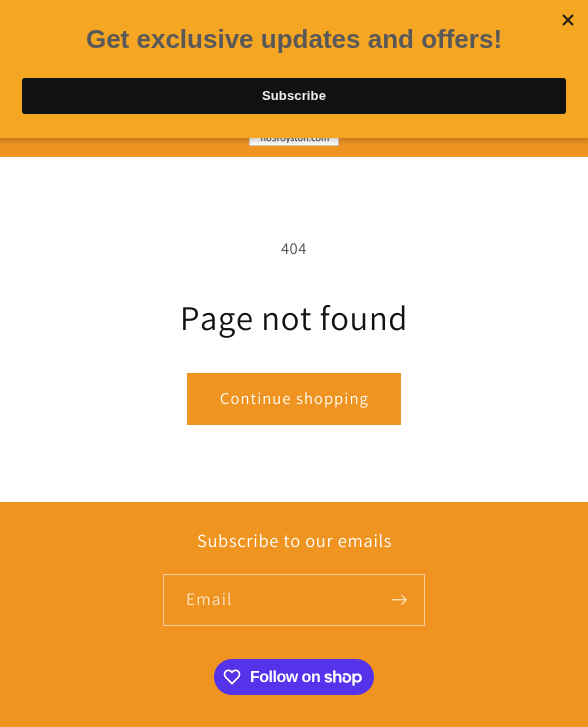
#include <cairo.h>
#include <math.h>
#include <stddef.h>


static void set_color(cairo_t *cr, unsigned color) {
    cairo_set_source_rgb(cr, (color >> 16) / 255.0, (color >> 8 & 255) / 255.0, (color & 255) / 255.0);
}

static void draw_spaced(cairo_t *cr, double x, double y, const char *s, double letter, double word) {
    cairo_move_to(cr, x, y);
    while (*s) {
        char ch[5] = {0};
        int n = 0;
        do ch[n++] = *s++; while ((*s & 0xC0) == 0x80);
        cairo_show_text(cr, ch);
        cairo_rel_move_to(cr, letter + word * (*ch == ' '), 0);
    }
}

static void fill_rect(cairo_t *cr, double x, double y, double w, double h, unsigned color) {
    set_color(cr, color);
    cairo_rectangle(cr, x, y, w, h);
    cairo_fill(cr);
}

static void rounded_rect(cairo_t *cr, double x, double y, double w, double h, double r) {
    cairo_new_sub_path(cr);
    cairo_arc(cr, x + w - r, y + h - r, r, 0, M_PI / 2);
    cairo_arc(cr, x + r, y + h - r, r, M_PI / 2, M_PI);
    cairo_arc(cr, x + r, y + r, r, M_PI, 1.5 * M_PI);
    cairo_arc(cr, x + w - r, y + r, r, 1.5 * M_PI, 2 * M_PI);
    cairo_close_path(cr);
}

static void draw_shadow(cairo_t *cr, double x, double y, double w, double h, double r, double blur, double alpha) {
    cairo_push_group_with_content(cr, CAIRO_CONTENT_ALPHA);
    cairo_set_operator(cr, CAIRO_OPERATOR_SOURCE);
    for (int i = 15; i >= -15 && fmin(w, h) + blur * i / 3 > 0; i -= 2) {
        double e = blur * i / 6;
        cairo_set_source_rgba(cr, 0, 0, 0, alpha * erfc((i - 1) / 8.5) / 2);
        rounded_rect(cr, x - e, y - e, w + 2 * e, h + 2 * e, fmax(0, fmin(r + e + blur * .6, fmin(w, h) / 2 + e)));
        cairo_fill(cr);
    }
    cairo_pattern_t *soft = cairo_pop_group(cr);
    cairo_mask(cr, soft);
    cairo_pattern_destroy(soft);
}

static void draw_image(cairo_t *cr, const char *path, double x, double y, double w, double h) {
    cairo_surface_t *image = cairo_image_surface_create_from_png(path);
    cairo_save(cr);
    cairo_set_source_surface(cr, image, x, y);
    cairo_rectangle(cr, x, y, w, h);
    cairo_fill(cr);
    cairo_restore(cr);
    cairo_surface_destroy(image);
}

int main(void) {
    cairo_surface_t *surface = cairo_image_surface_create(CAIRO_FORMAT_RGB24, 588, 727);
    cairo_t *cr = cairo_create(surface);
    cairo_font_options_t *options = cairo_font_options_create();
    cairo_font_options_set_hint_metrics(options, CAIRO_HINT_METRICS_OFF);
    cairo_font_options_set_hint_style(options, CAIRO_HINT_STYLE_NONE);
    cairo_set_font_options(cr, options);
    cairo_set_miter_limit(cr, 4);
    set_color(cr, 0xFFFFFF);
    cairo_paint(cr);
    fill_rect(cr, 0, 138, 588, 18, 0xF09421);
    draw_image(cr, "assets/img2.png", 249, 138, 90, 8);
    set_color(cr, 0x000000);
    draw_shadow(cr, 0, 3, 588, 138, 0, 3, 0.2);
    draw_image(cr, "assets/img1.png", 0, 0, 588, 138);
    fill_rect(cr, 0, 156, 588, 1, 0xF19D33);
    cairo_select_font_face(cr, "Assistant", CAIRO_FONT_SLANT_NORMAL, CAIRO_FONT_WEIGHT_NORMAL);
    cairo_set_font_size(cr, 16.5);
    set_color(cr, 0x4D4D4D);
    draw_spaced(cr, 281, 254, "404", 0.5, 0);
    cairo_set_font_size(cr, 34.5);
    set_color(cr, 0x121212);
    draw_spaced(cr, 180, 330, "Page not found", 0.7, 0);
    fill_rect(cr, 187, 373, 214, 52, 0xF09421);
    cairo_set_font_size(cr, 16.5);
    set_color(cr, 0xFFFFFF);
    draw_spaced(cr, 220, 404, "Continue shopping", 1.1, 0);
    fill_rect(cr, 0, 502, 588, 225, 0xF09421);
    cairo_set_font_size(cr, 18.4);
    set_color(cr, 0xFFFFFF);
    draw_spaced(cr, 197, 547, "Subscribe to our emails", 0.7, 0);
    cairo_rectangle(cr, 163.5, 574.5, 261, 51);
    set_color(cr, 0xF8CF9B);
    cairo_set_line_width(cr, 1);
    cairo_stroke(cr);
    cairo_set_font_size(cr, 17.5);
    set_color(cr, 0xFBE4C8);
    draw_spaced(cr, 186, 605, "Email", 1.1, 0);
    draw_image(cr, "assets/img3.png", 391, 594, 16, 11);
    set_color(cr, 0x5433EB);
    rounded_rect(cr, 214, 659, 160, 36, 18);
    cairo_fill(cr);
    draw_image(cr, "assets/img4.png", 223, 669, 18, 16);
    cairo_select_font_face(cr, "Liberation Sans", CAIRO_FONT_SLANT_NORMAL, CAIRO_FONT_WEIGHT_BOLD);
    cairo_set_font_size(cr, 16);
    set_color(cr, 0xFFFFFF);
    draw_spaced(cr, 250, 682, "Follow on", -0.5, 0);
    draw_image(cr, "assets/img5.png", 324, 670, 38, 16);
    cairo_surface_write_to_png(surface, "output.png");
    cairo_font_options_destroy(options);
    cairo_destroy(cr);
    cairo_surface_destroy(surface);
    return 0;
}
